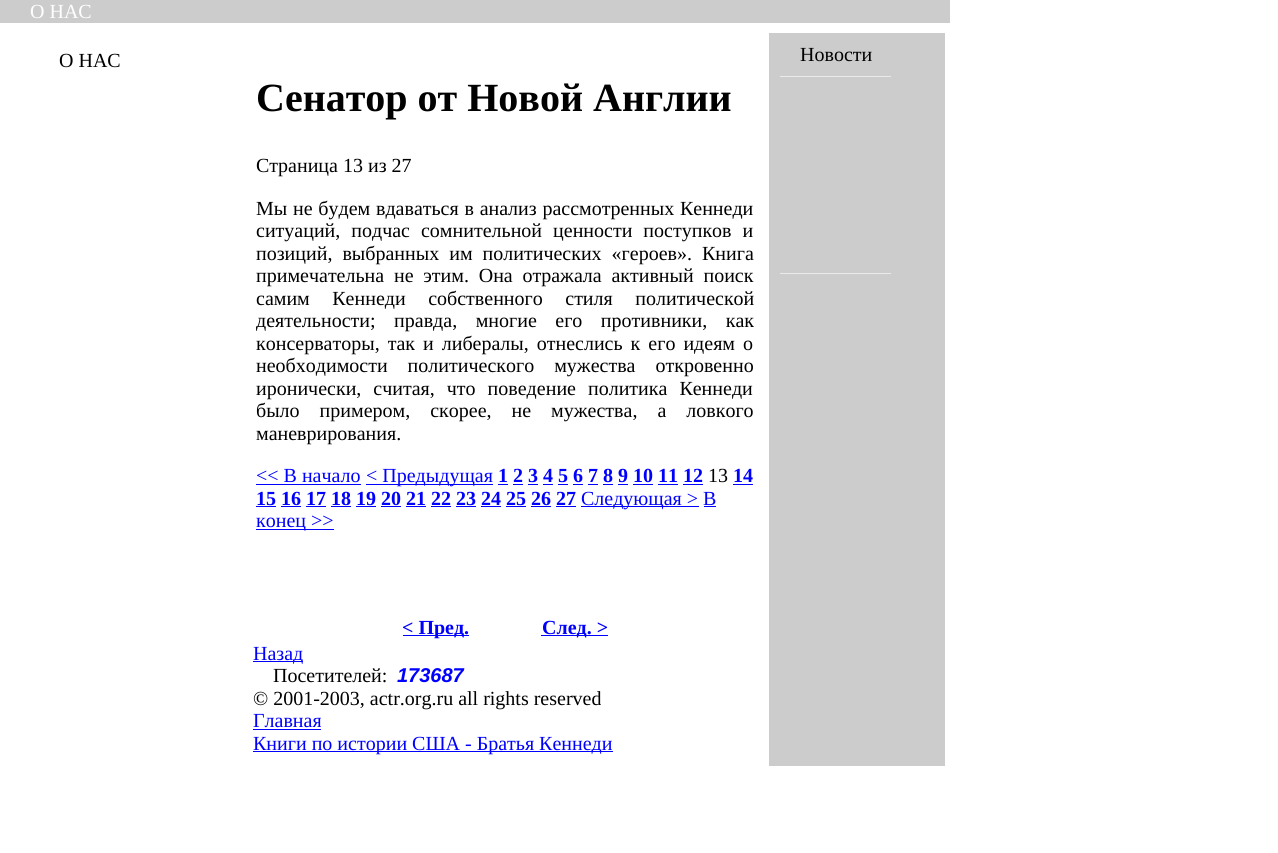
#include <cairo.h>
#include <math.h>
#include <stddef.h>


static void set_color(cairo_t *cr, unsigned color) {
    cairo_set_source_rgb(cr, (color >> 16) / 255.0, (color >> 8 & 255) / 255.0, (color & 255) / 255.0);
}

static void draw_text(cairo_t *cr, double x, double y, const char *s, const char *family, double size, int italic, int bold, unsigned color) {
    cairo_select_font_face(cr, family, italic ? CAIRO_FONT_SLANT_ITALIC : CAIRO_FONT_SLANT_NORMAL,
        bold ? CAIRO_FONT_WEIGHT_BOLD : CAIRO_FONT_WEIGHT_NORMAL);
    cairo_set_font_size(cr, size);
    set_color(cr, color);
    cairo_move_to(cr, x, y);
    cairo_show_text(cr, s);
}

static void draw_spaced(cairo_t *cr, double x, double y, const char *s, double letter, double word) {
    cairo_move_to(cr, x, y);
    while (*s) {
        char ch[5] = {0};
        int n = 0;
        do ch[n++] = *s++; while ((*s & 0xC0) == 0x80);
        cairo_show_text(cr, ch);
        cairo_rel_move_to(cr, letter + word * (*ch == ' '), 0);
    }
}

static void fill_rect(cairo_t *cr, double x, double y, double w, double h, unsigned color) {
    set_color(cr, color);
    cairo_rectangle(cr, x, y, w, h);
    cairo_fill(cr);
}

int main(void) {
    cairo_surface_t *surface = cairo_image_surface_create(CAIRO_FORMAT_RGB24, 1278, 853);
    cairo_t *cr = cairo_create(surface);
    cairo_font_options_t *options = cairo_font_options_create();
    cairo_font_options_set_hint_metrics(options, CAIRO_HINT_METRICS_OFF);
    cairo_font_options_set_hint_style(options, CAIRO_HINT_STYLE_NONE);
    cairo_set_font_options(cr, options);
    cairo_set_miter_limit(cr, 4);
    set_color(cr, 0xFFFFFF);
    cairo_paint(cr);
    fill_rect(cr, 0, 0, 950, 23, 0xCCCCCC);
    draw_text(cr, 30, 18, "О НАС", "Liberation Serif", 20, 0, 0, 0xFFFFFF);
    draw_text(cr, 59, 67, "О НАС", "Liberation Serif", 20, 0, 0, 0x000000);
    fill_rect(cr, 769, 33, 176, 733, 0xCCCCCC);
    draw_text(cr, 800, 61, "Новости", "Liberation Serif", 20, 0, 0, 0x000000);
    fill_rect(cr, 780, 76, 111, 1, 0xEBEAE9);
    fill_rect(cr, 780, 273, 111, 1, 0xEBEAE9);
    draw_text(cr, 256, 111, "Сенатор от Новой Англии", "Liberation Serif", 40, 0, 1, 0x000000);
    draw_text(cr, 256, 172, "Страница 13 из 27", "Liberation Serif", 20, 0, 0, 0x000000);
    draw_spaced(cr, 256, 215, "Мы не будем вдаваться в анализ рассмотренных Кеннеди", 0, 0.75);
    draw_spaced(cr, 256, 237, "ситуаций, подчас сомнительной ценности поступков и", 0, 6);
    draw_spaced(cr, 256, 260, "позиций, выбранных им политических «героев». Книга", 0, 5);
    draw_spaced(cr, 256, 282, "примечательна не этим. Она отражала активный поиск", 0, 4.75);
    draw_spaced(cr, 256, 305, "самим Кеннеди собственного стиля политической", 0, 17.5);
    draw_spaced(cr, 256, 327, "деятельности; правда, многие его противники, как", 0, 13.5);
    draw_spaced(cr, 256, 350, "консерваторы, так и либералы, отнеслись к его идеям о", 0, 3);
    draw_spaced(cr, 256, 372, "необходимости политического мужества откровенно", 0, 15);
    draw_spaced(cr, 256, 395, "иронически, считая, что поведение политика Кеннеди", 0, 7);
    draw_spaced(cr, 256, 417, "было примером, скорее, не мужества, а ловкого", 0, 15);
    draw_text(cr, 256, 440, "маневрирования.", "Liberation Serif", 20, 0, 0, 0x000000);
    draw_text(cr, 256, 482, "<< В начало", "Liberation Serif", 20, 0, 0, 0x0000FF);
    fill_rect(cr, 256, 484, 105, 1, 0x0000FF);
    fill_rect(cr, 366, 484, 127, 1, 0x0000FF);
    draw_text(cr, 366, 482, "< Предыдущая", "Liberation Serif", 20, 0, 0, 0x0000FF);
    draw_text(cr, 498, 482, "1 2 3 4 5 6 7 8 9 10 11 12", "Liberation Serif", 20, 0, 1, 0x0000FF);
    fill_rect(cr, 498, 484, 10, 1, 0x0000FF);
    draw_text(cr, 708, 482, "13", "Liberation Serif", 20, 0, 0, 0x000000);
    draw_text(cr, 733, 482, "14", "Liberation Serif", 20, 0, 1, 0x0000FF);
    fill_rect(cr, 733, 484, 20, 1, 0x0000FF);
    fill_rect(cr, 513, 484, 10, 1, 0x0000FF);
    fill_rect(cr, 528, 484, 10, 1, 0x0000FF);
    fill_rect(cr, 543, 484, 10, 1, 0x0000FF);
    fill_rect(cr, 558, 484, 10, 1, 0x0000FF);
    fill_rect(cr, 573, 484, 10, 1, 0x0000FF);
    fill_rect(cr, 588, 484, 10, 1, 0x0000FF);
    fill_rect(cr, 603, 484, 10, 1, 0x0000FF);
    fill_rect(cr, 618, 484, 10, 1, 0x0000FF);
    fill_rect(cr, 633, 484, 20, 1, 0x0000FF);
    fill_rect(cr, 658, 484, 20, 1, 0x0000FF);
    fill_rect(cr, 683, 484, 20, 1, 0x0000FF);
    draw_text(cr, 256, 505, "15 16 17 18 19 20 21 22 23 24 25 26 27", "Liberation Serif", 20, 0, 1, 0x0000FF);
    fill_rect(cr, 256, 506, 20, 1, 0x0000FF);
    fill_rect(cr, 581, 506, 118, 1, 0x0000FF);
    draw_text(cr, 581, 505, "Следующая > В", "Liberation Serif", 20, 0, 0, 0x0000FF);
    fill_rect(cr, 281, 506, 20, 1, 0x0000FF);
    fill_rect(cr, 306, 506, 20, 1, 0x0000FF);
    fill_rect(cr, 331, 506, 20, 1, 0x0000FF);
    fill_rect(cr, 356, 506, 20, 1, 0x0000FF);
    fill_rect(cr, 381, 506, 20, 1, 0x0000FF);
    fill_rect(cr, 406, 506, 20, 1, 0x0000FF);
    fill_rect(cr, 431, 506, 20, 1, 0x0000FF);
    fill_rect(cr, 456, 506, 20, 1, 0x0000FF);
    fill_rect(cr, 481, 506, 20, 1, 0x0000FF);
    fill_rect(cr, 506, 506, 20, 1, 0x0000FF);
    fill_rect(cr, 531, 506, 20, 1, 0x0000FF);
    fill_rect(cr, 556, 506, 20, 1, 0x0000FF);
    fill_rect(cr, 256, 529, 78, 1, 0x0000FF);
    draw_text(cr, 256, 527, "конец >>", "Liberation Serif", 20, 0, 0, 0x0000FF);
    fill_rect(cr, 704, 506, 12, 1, 0x0000FF);
    fill_rect(cr, 403, 635, 66, 1, 0x0000FF);
    draw_text(cr, 402, 634, "< Пред.", "Liberation Serif", 20, 0, 1, 0x0000FF);
    fill_rect(cr, 541, 635, 67, 1, 0x0000FF);
    draw_text(cr, 542, 634, "След. >", "Liberation Serif", 20, 0, 1, 0x0000FF);
    fill_rect(cr, 253, 661, 50, 1, 0x0000FF);
    draw_text(cr, 253, 660, "Назад", "Liberation Serif", 20, 0, 0, 0x0000FF);
    draw_text(cr, 273, 682, "Посетителей:", "Liberation Serif", 20, 0, 0, 0x000000);
    draw_text(cr, 397, 682, "173687", "Liberation Sans", 20, 1, 1, 0x0000FF);
    draw_text(cr, 253, 705, "© 2001-2003, actr.org.ru all rights reserved", "Liberation Serif", 20, 0, 0, 0x000000);
    draw_text(cr, 253, 727, "Главная", "Liberation Serif", 20, 0, 0, 0x0000FF);
    fill_rect(cr, 253, 729, 68, 1, 0x0000FF);
    fill_rect(cr, 253, 751, 360, 1, 0x0000FF);
    draw_text(cr, 253, 750, "Книги по истории США - Братья Кеннеди", "Liberation Serif", 20, 0, 0, 0x0000FF);
    cairo_surface_write_to_png(surface, "output.png");
    cairo_font_options_destroy(options);
    cairo_destroy(cr);
    cairo_surface_destroy(surface);
    return 0;
}
